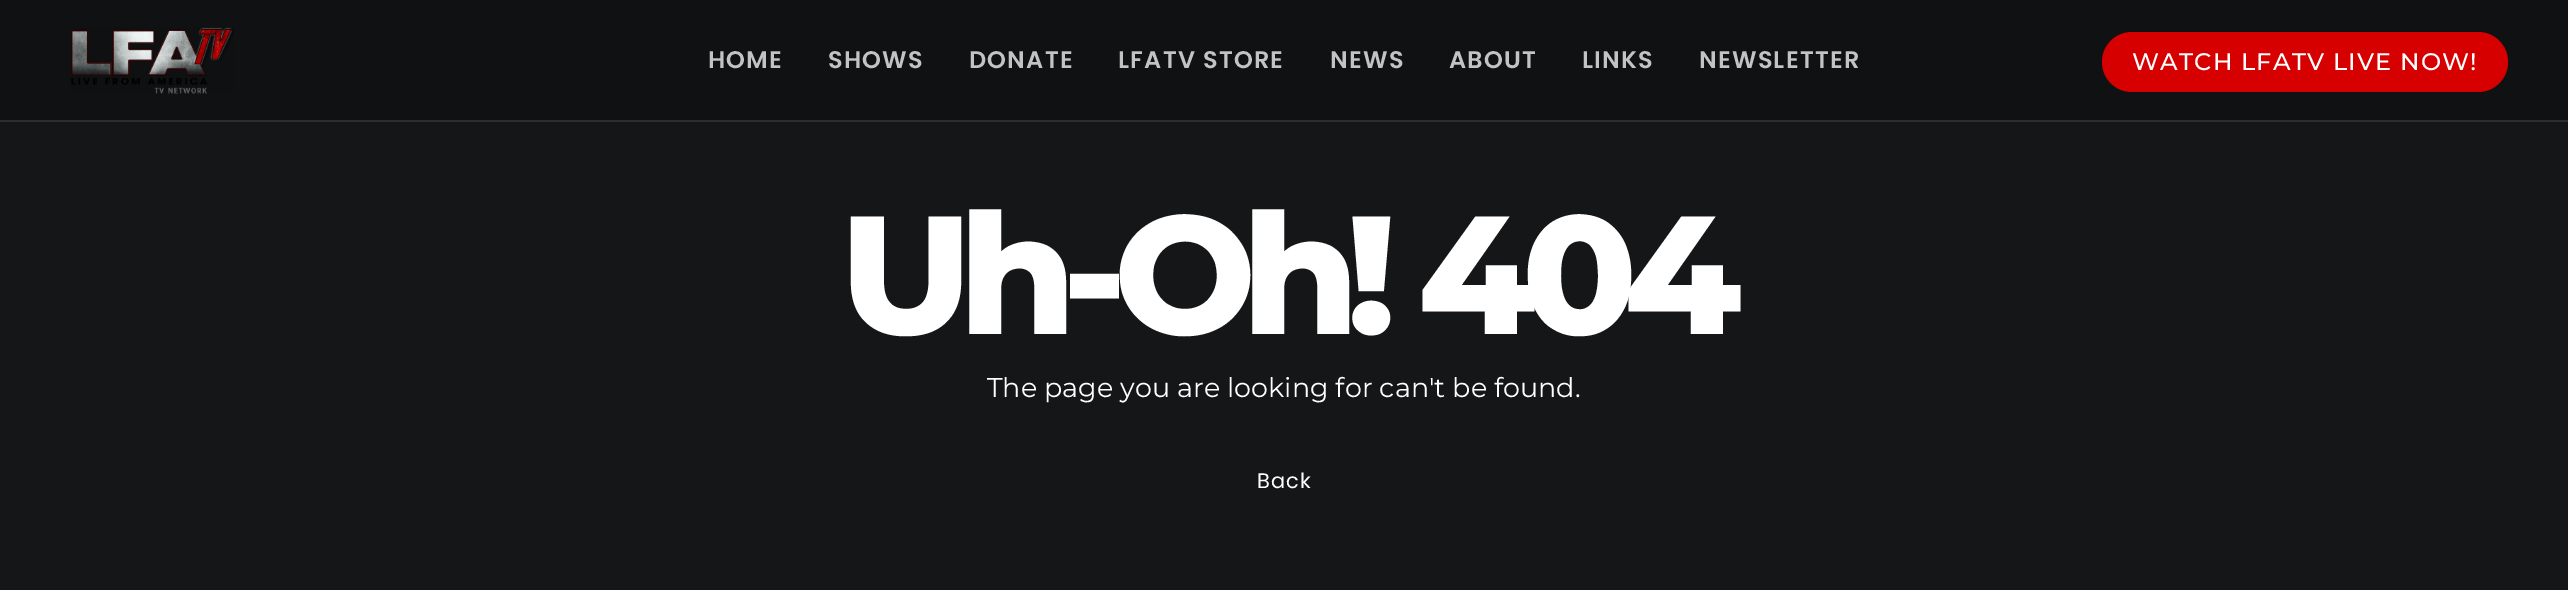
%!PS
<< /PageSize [2568 590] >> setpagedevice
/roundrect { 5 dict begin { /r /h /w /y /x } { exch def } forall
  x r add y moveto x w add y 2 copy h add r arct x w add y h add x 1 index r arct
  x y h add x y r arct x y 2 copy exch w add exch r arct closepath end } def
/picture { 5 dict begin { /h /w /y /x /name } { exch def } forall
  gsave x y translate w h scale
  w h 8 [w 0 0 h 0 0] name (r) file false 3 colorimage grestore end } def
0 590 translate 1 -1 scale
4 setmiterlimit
0.059 0.067 0.071 setrgbcolor
0 0 2568 590 rectfill
0.173 0.176 0.184 setrgbcolor
0 120 2568 2 rectfill
(img1.rgb) 71 27 163 67 picture
/Poppins-SemiBold [24 0 0 -24 0 0] selectfont
0.765 0.765 0.769 setrgbcolor
708 68 moveto 1.2 0 (HOME) ashow
828 68 moveto 1.2 0 (SHOWS) ashow
969 68 moveto 1.2 0 (DONATE) ashow
1118 68 moveto 1.2 0 (LFATV STORE) ashow
1330 68 moveto 1.2 0 (NEWS) ashow
1449 68 moveto 1.2 0 (ABOUT) ashow
1582 68 moveto 1.2 0 (LINKS) ashow
1699 68 moveto 1.2 0 (NEWSLETTER) ashow
0.839 0 0 setrgbcolor
2102 32 406 60 30 roundrect fill
/Montserrat-Medium [24 0 0 -24 0 0] selectfont
1 setgray
2132 70 moveto 1.2 0 (WATCH LFATV LIVE NOW!) ashow
0.078 0.086 0.094 setrgbcolor
0 122 2568 468 rectfill
/Montserrat-ExtraBold [168 0 0 -168 0 0] selectfont
1 setgray
840 334 moveto -13.5 0 (Uh-Oh! 404) ashow
/Montserrat-Regular [27 0 0 -27 0 0] selectfont
987 397 moveto (The page you are looking for can't be found.) show
/Poppins-Regular [21 0 0 -21 0 0] selectfont
1257 488 moveto 1 0 (Back) ashow
showpage
